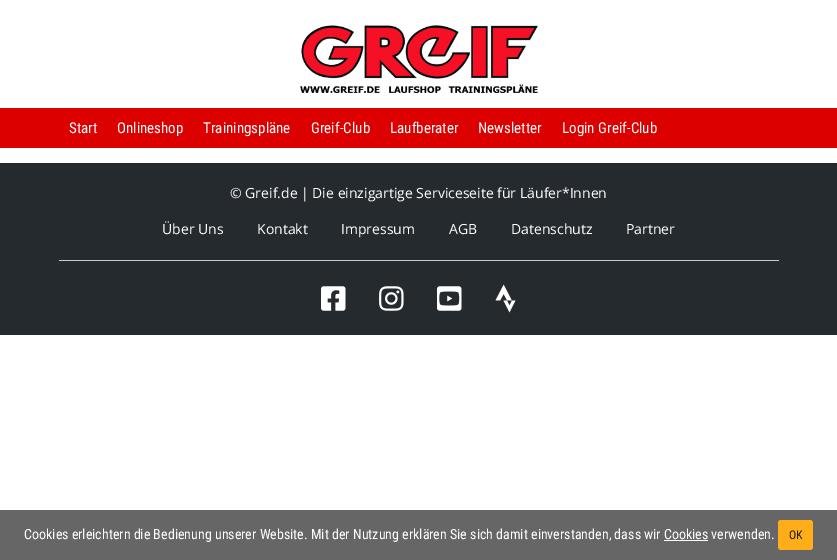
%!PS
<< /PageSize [837 560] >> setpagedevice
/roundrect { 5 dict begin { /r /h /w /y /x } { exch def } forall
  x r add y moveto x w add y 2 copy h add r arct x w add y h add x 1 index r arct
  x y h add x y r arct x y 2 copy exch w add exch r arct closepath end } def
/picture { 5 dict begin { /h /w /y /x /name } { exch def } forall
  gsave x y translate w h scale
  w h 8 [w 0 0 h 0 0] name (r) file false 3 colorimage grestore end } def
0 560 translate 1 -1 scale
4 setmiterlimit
1 setgray
0 0 837 560 rectfill
(img1.rgb) 300 25 238 68 picture
0.867 0 0 setrgbcolor
0 108 837 40 rectfill
/RobotoCondensed-Regular [15 0 0 -15 0 0] selectfont
1 setgray
69 133 moveto (Start) show
117 133 moveto (Onlineshop) show
203 133 moveto (Trainingspläne) show
311 133 moveto (Greif-Club) show
390 133 moveto (Laufberater) show
478 133 moveto (Newsletter) show
562 133 moveto (Login Greif-Club) show
0.145 0.165 0.184 setrgbcolor
0 163 837 172 rectfill
/OpenSans-Regular [14 0 0 -14 0 0] selectfont
1 setgray
230 198 moveto (© Greif.de | Die einzigartige Serviceseite für Läufer*Innen) show
162 234 moveto (Über Uns) show
257 234 moveto (Kontakt) show
341 234 moveto (Impressum) show
449 234 moveto (AGB) show
511 234 moveto (Datenschutz) show
626 234 moveto (Partner) show
0.8 setgray
59 260 720 1 rectfill
(img2.rgb) 321 286 25 25 picture
(img3.rgb) 379 286 25 25 picture
(img4.rgb) 437 286 25 25 picture
(img5.rgb) 495 284 21 29 picture
0.4 setgray
0 510 837 50 rectfill
/RobotoCondensed-Regular [14 0 0 -14 0 0] selectfont
1 setgray
24 539 moveto (Cookies erleichtern die Bedienung unserer Website. Mit der Nutzung erklären Sie sich damit einverstanden, dass wir Cookies verwenden.) show
1 0.682 0.102 setrgbcolor
778 520 35 30 3 roundrect fill
/RobotoCondensed-Regular [12 0 0 -12 0 0] selectfont
0.102 setgray
789 539 moveto (OK) show
1 setgray
664 540 44 1 rectfill
showpage
